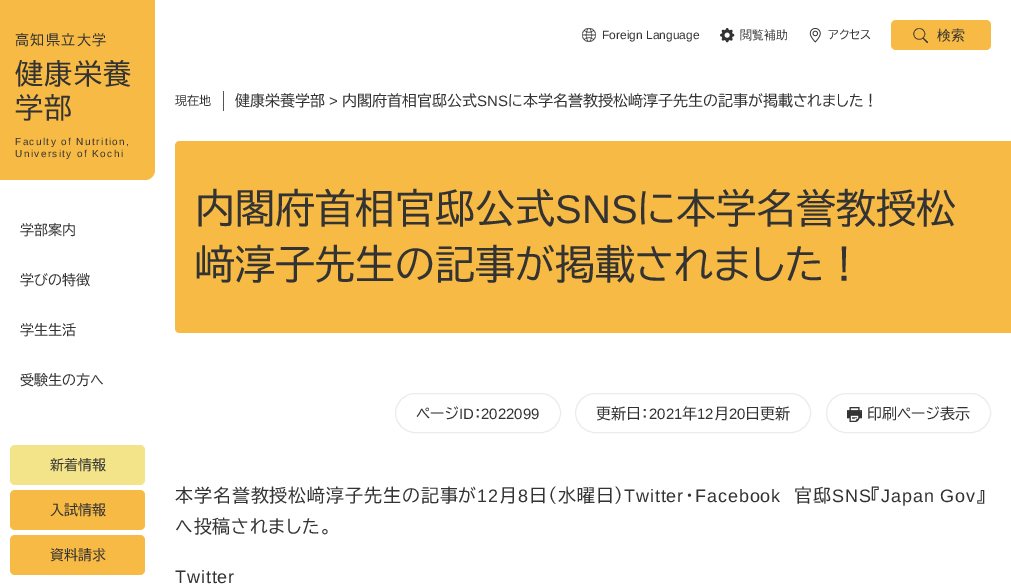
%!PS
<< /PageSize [1011 584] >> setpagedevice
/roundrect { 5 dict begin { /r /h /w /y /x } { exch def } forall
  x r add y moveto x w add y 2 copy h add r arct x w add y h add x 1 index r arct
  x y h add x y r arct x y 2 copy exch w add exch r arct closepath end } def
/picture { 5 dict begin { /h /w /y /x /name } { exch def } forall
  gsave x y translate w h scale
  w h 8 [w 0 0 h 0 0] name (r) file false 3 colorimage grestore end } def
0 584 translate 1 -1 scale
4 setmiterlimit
1 setgray
0 0 1011 584 rectfill
0.969 0.729 0.267 setrgbcolor
newpath 0 0 moveto 155 0 lineto 155 170 lineto 155 175.5 150.5 180 145 180 curveto 0 180 lineto closepath fill
/BIZUDPGothic-Regular [14 0 0 -14 0 0] selectfont
0.2 setgray
15 45 moveto 1.4 0 (高知県立大学) ashow
/BIZUDPGothic-Regular [28 0 0 -28 0 0] selectfont
15 84 moveto 1.4 0 (健康栄養) ashow
15 118 moveto 1.4 0 (学部) ashow
/LiberationSans-Regular [10 0 0 -10 0 0] selectfont
15 145 moveto 1.4 0 (Faculty of Nutrition,) ashow
15 157 moveto 1.4 0 (University of Kochi) ashow
/BIZUDPGothic-Regular [14 0 0 -14 0 0] selectfont
20 235 moveto (学部案内) show
20 285 moveto (学びの特徴) show
20 335 moveto (学生生活) show
20 385 moveto (受験生の方へ) show
0.957 0.894 0.537 setrgbcolor
10 445 135 40 5 roundrect fill
0.2 setgray
50 470 moveto (新着情報) show
0.969 0.729 0.267 setrgbcolor
10 490 135 40 5 roundrect fill
0.2 setgray
50 515 moveto (入試情報) show
0.969 0.729 0.267 setrgbcolor
10 535 135 40 5 roundrect fill
0.2 setgray
50 560 moveto (資料請求) show
(img1.rgb) 582 28 14 14 picture
/LiberationSans-Regular [12 0 0 -12 0 0] selectfont
602 39 moveto (Foreign Language) show
(img2.rgb) 720 28 15 15 picture
/WenQuanYiZenHei-Medium [12 0 0 -12 0 0] selectfont
740 39 moveto (閲覧補助) show
(img3.rgb) 809 28 12 15 picture
/BIZUDPGothic-Regular [12 0 0 -12 0 0] selectfont
828 39 moveto (アクセス) show
0.969 0.729 0.267 setrgbcolor
891 20 100 30 5 roundrect fill
(img4.rgb) 913 28 15 15 picture
/WenQuanYiZenHei-Medium [14 0 0 -14 0 0] selectfont
0.2 setgray
937 40 moveto (検索) show
0.333 setgray
223 91 1 20 rectfill
/BIZUDPGothic-Regular [12 0 0 -12 0 0] selectfont
0.2 setgray
175 105 moveto (現在地) show
/BIZUDPGothic-Regular [15 0 0 -15 0 0] selectfont
235 106 moveto (健康栄養学部) show
/LiberationSans-Regular [15 0 0 -15 0 0] selectfont
329 106 moveto (>) show
/BIZUDPGothic-Regular [15 0 0 -15 0 0] selectfont
342 106 moveto (内閣府首相官邸公式) show
/LiberationSans-Regular [15 0 0 -15 0 0] selectfont
477 106 moveto (SNS) show
/BIZUDPGothic-Regular [15 0 0 -15 0 0] selectfont
508 106 moveto (に本学名誉教授松﨑淳子先生の記事が掲載されました！) show
0.969 0.729 0.267 setrgbcolor
newpath 180 141 moveto 1011 141 lineto 1011 333 lineto 180 333 lineto 177 333 175 331 175 328 curveto 175 146 lineto 175 143 177 141 180 141 curveto closepath fill
/BIZUDPGothic-Regular [40 0 0 -40 0 0] selectfont
0.2 setgray
195 223 moveto (内閣府首相官邸公式) show
/LiberationSans-Regular [40 0 0 -40 0 0] selectfont
555 223 moveto (SNS) show
/BIZUDPGothic-Regular [40 0 0 -40 0 0] selectfont
637 223 moveto (に本学名誉教授松) show
195 279 moveto (﨑淳子先生の記事が掲載されました！) show
0.925 setgray
395.5 393.5 165 39 19.5 roundrect stroke
/BIZUDPGothic-Regular [15 0 0 -15 0 0] selectfont
0.2 setgray
416 419 moveto (ページ) show
/LiberationSans-Regular [15 0 0 -15 0 0] selectfont
459 419 moveto (ID) show
/BIZUDPGothic-Regular [15 0 0 -15 0 0] selectfont
474 419 moveto (：) show
/LiberationSans-Regular [15 0 0 -15 0 0] selectfont
481 419 moveto (2022099) show
0.925 setgray
575.5 393.5 235 39 19.5 roundrect stroke
/BIZUDPGothic-Regular [15 0 0 -15 0 0] selectfont
0.2 setgray
596 419 moveto (更新日：) show
/LiberationSans-Regular [15 0 0 -15 0 0] selectfont
649 419 moveto (2021) show
/BIZUDPGothic-Regular [15 0 0 -15 0 0] selectfont
682 419 moveto (年) show
/LiberationSans-Regular [15 0 0 -15 0 0] selectfont
697 419 moveto (12) show
/BIZUDPGothic-Regular [15 0 0 -15 0 0] selectfont
714 419 moveto (月) show
/LiberationSans-Regular [15 0 0 -15 0 0] selectfont
729 419 moveto (20) show
/BIZUDPGothic-Regular [15 0 0 -15 0 0] selectfont
745 419 moveto (日更新) show
0.925 setgray
826.5 393.5 164 39 19.5 roundrect stroke
(img5.rgb) 847 407 15 15 picture
0.2 setgray
867 419 moveto (印刷ページ表示) show
/BIZUDPGothic-Regular [18 0 0 -18 0 0] selectfont
175 502 moveto 0.9 0 (本学名誉教授松﨑淳子先生の記事が) ashow
/LiberationSans-Regular [18 0 0 -18 0 0] selectfont
477 502 moveto 0.9 0 (12) ashow
/BIZUDPGothic-Regular [18 0 0 -18 0 0] selectfont
499 502 moveto 0.9 0 (月) ashow
/LiberationSans-Regular [18 0 0 -18 0 0] selectfont
518 502 moveto 0.9 0 (8) ashow
/BIZUDPGothic-Regular [18 0 0 -18 0 0] selectfont
529 502 moveto 0.9 0 (日（水曜日）) ashow
/LiberationSans-Regular [18 0 0 -18 0 0] selectfont
624 502 moveto 0.9 0 (Twitter) ashow
/BIZUDPGothic-Regular [18 0 0 -18 0 0] selectfont
685 502 moveto 0.9 0 (・) ashow
/LiberationSans-Regular [18 0 0 -18 0 0] selectfont
695 502 moveto 0.9 0 (Facebook) ashow
/BIZUDPGothic-Regular [18 0 0 -18 0 0] selectfont
794 502 moveto 0.9 0 (官邸) ashow
/LiberationSans-Regular [18 0 0 -18 0 0] selectfont
832 502 moveto 0.9 0 (SNS) ashow
/BIZUDPGothic-Regular [18 0 0 -18 0 0] selectfont
871 502 moveto 0.9 0 (『) ashow
/LiberationSans-Regular [18 0 0 -18 0 0] selectfont
881 502 moveto 0.9 0 (Japan Gov) ashow
/BIZUDPGothic-Regular [18 0 0 -18 0 0] selectfont
976 502 moveto 0.9 0 (』) ashow
175 533 moveto 0.9 0 (へ投稿されました。) ashow
/LiberationSans-Regular [18 0 0 -18 0 0] selectfont
175 583 moveto 0.9 0 (Twitter) ashow
showpage
